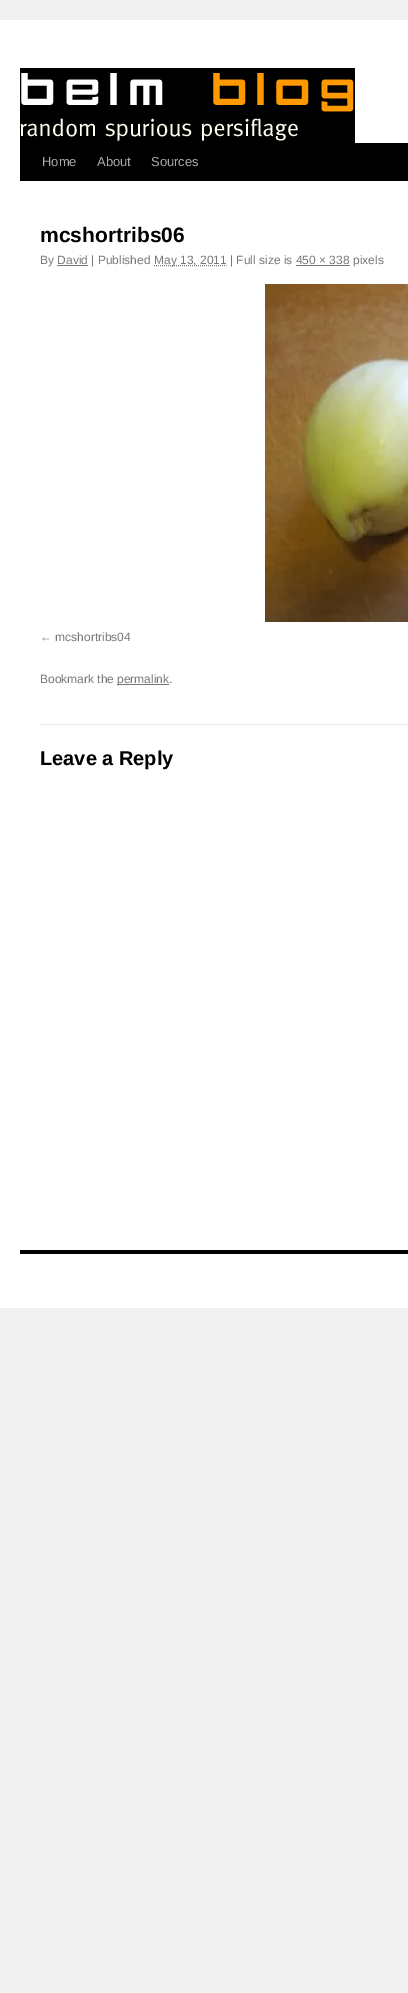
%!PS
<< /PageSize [408 1993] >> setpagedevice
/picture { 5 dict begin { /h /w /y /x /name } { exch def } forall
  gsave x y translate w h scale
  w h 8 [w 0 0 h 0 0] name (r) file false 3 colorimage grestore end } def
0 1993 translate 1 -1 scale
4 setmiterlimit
0.945 setgray
0 0 408 1993 rectfill
1 setgray
0 20 408 1288 rectfill
0 setgray
20 68 335 4 rectfill
20 142 335 1 rectfill
(img1.rgb) 20 72 335 70 picture
20 143 388 38 rectfill
/LiberationSans-Regular [13 0 0 -13 0 0] selectfont
0.667 setgray
42 166 moveto (Home) show
97 166 moveto (About) show
151 166 moveto (Sources) show
/LiberationSans-Bold [21 0 0 -21 0 0] selectfont
0 setgray
40 242 moveto (mcshortribs06) show
/LiberationSans-Regular [12 0 0 -12 0 0] selectfont
0.467 setgray
40 264 moveto (By David | Published) show
[1 1] 0 setdash
newpath 154 265.5 moveto 226.5 265.5 lineto stroke
154 264 moveto (May 13, 2011 | Full size is 450 × 338 pixels) show
57 265 31 1 rectfill
296 265 54 1 rectfill
(img2.rgb) 265 284 143 338 picture
40 641 moveto (← mcshortribs04) show
40 683 moveto (Bookmark the) show
117 684 52 1 rectfill
117 683 moveto (permalink.) show
0.906 setgray
40 724 368 1 rectfill
/LiberationSans-Bold [20 0 0 -20 0 0] selectfont
0 setgray
40 765 moveto (Leave a Reply) show
20 1250 388 4 rectfill
showpage
